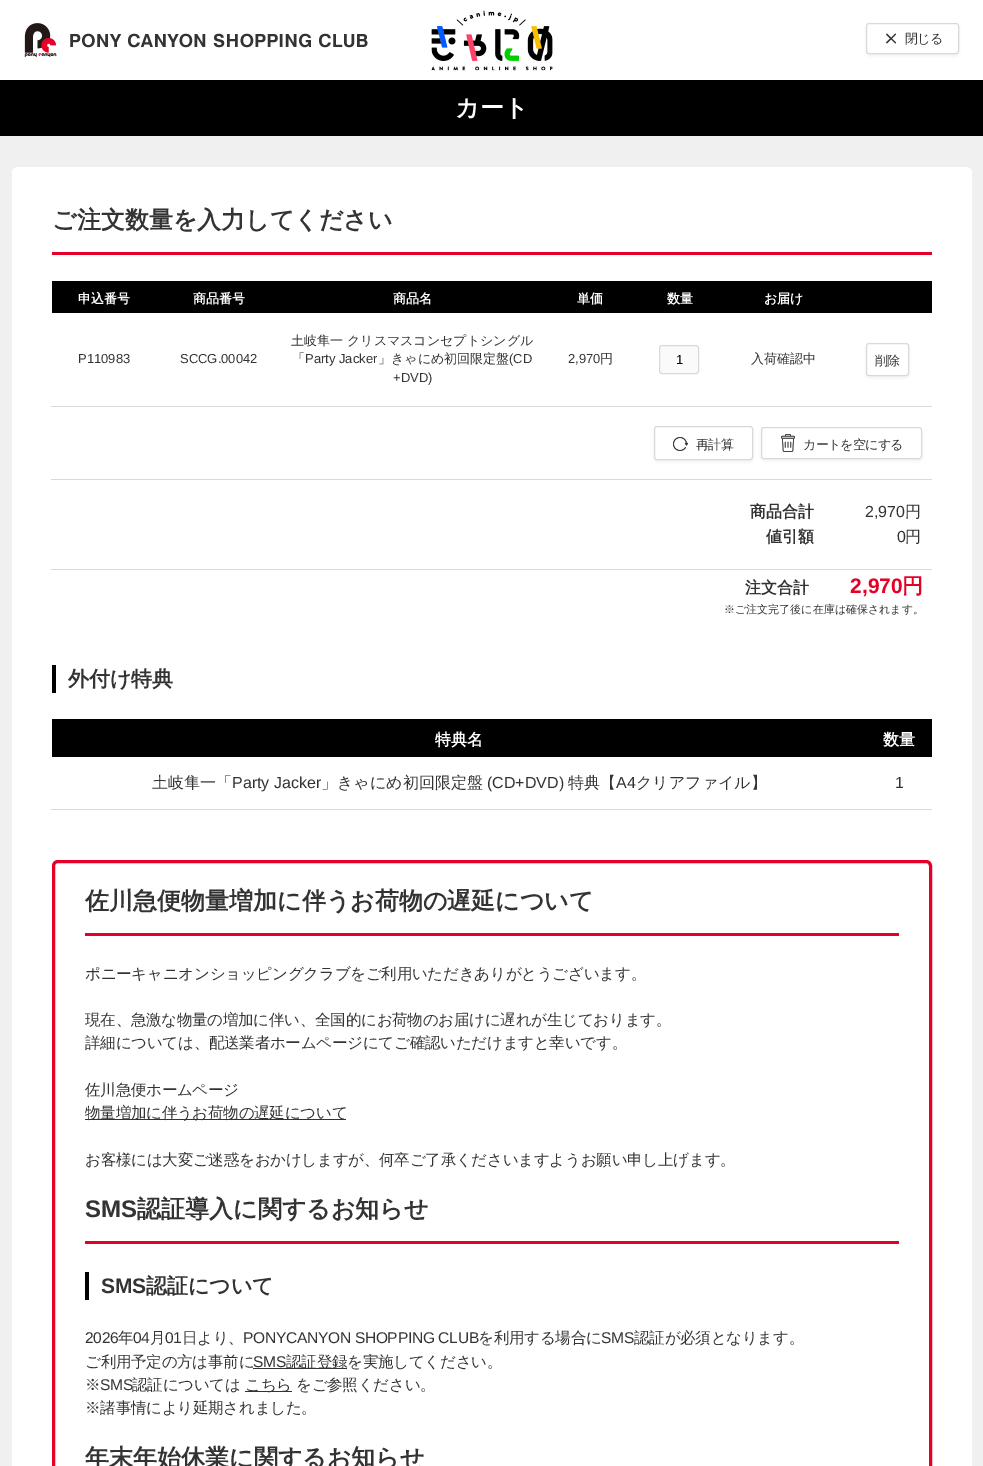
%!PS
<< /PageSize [983 1466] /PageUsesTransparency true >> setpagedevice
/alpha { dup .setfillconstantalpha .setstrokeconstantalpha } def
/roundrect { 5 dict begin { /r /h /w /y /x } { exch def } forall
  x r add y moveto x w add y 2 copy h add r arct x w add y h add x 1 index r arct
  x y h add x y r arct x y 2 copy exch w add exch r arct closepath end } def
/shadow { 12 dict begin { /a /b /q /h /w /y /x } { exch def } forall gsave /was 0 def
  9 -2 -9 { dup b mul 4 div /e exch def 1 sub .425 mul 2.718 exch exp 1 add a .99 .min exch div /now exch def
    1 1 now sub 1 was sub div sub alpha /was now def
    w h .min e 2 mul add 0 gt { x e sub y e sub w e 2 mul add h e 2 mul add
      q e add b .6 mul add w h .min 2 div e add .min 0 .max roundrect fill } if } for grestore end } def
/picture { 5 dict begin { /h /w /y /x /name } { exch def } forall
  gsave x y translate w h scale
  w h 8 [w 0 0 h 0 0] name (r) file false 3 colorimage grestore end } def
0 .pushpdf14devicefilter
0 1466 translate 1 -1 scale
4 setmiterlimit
0.941 setgray
0 0 983 1466 rectfill
1 setgray
0 0 983 80 rectfill
(img1.rgb) 24 23 344 34 picture
(img2.rgb) 431 10 122 61 picture
0 setgray
866 25 93 31 3 1.5 0.05 shadow
1 setgray
866.5 23.5 92 30 2.5 roundrect gsave fill grestore
0.851 setgray
stroke
0.2 setgray
newpath 887 33.5 moveto 896 42.5 lineto 895.5 43.5 lineto 886 34.5 lineto closepath fill
/WenQuanYiZenHei-Medium [13 0 0 -13 0 0] selectfont
905 43 moveto -0.75 0 (閉じる) ashow
newpath 886 42.5 moveto 895.5 33.5 lineto 896 34.5 lineto 887 43.5 lineto closepath fill
0 setgray
0 80 983 56 rectfill
/WenQuanYiZenHei-Bold [24 0 0 -24 0 0] selectfont
1 setgray
455 116 moveto (カート) show
12 167 960 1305 6 roundrect fill
0.898 0 0.157 setrgbcolor
52 252 880 3 rectfill
0.2 setgray
52 228 moveto (ご注文数量を入力してください) show
0 setgray
52 281 880 32 rectfill
/WenQuanYiZenHei-Bold [13 0 0 -13 0 0] selectfont
1 setgray
78 303 moveto (申込番号) show
193 303 moveto (商品番号) show
393 303 moveto (商品名) show
577 303 moveto (単価) show
667 303 moveto (数量) show
764 303 moveto (お届け) show
0.851 setgray
51 406 881 1 rectfill
/LiberationSans-Regular [13 0 0 -13 0 0] selectfont
0.2 setgray
78 363 moveto (P110983) show
180 363 moveto (SCCG.00042) show
/WenQuanYiZenHei-Medium [13 0 0 -13 0 0] selectfont
291 345 moveto (土岐隼一 クリスマスコンセプトシングル) show
292 363 moveto (「) show
/LiberationSans-Regular [13 0 0 -13 0 0] selectfont
305 363 moveto (Party Jacker) show
/WenQuanYiZenHei-Medium [13 0 0 -13 0 0] selectfont
378 363 moveto (」きゃにめ初回限定盤) show
/LiberationSans-Regular [13 0 0 -13 0 0] selectfont
509 363 moveto (\(CD) show
393 382 moveto (+DVD\)) show
568 363 moveto (2,970) show
/WenQuanYiZenHei-Medium [13 0 0 -13 0 0] selectfont
600 363 moveto (円) show
0.98 setgray
659.5 345.5 39 28 2.5 roundrect gsave fill grestore
0.851 setgray
stroke
/LiberationSans-Regular [13 0 0 -13 0 0] selectfont
0 setgray
676 364 moveto (1) show
/WenQuanYiZenHei-Medium [13 0 0 -13 0 0] selectfont
0.2 setgray
751 363 moveto (入荷確認中) show
0 setgray
866 345 43 33 3 1.5 0.05 shadow
1 setgray
866.5 343.5 42 32 2.5 roundrect gsave fill grestore
0.851 setgray
stroke
0.2 setgray
875 365 moveto -0.75 0 (削除) ashow
0.851 setgray
51 479 881 1 rectfill
0 setgray
654 428 99 34 3 1.5 0.05 shadow
1 setgray
654.5 426.5 98 33 2.5 roundrect gsave fill grestore
0.851 setgray
stroke
(img3.rgb) 673 437 15 14 picture
0.2 setgray
696 449 moveto -0.75 0 (再計算) ashow
0 setgray
761 429 161 32 3 1.5 0.05 shadow
1 setgray
761.5 427.5 160 31 2.5 roundrect gsave fill grestore
0.851 setgray
stroke
(img4.rgb) 781 434 14 18 picture
0.2 setgray
803 449 moveto -0.75 0 (カートを空にする) ashow
0.851 setgray
51 569 881 1 rectfill
/WenQuanYiZenHei-Bold [16 0 0 -16 0 0] selectfont
0.2 setgray
750 517 moveto (商品合計) show
/LiberationSans-Regular [16 0 0 -16 0 0] selectfont
865 517 moveto (2,970) show
/WenQuanYiZenHei-Medium [16 0 0 -16 0 0] selectfont
905 517 moveto (円) show
/WenQuanYiZenHei-Bold [16 0 0 -16 0 0] selectfont
766 542 moveto (値引額) show
/LiberationSans-Regular [16 0 0 -16 0 0] selectfont
897 542 moveto (0) show
/WenQuanYiZenHei-Medium [16 0 0 -16 0 0] selectfont
905 542 moveto (円) show
/WenQuanYiZenHei-Bold [16 0 0 -16 0 0] selectfont
745 593 moveto (注文合計) show
/LiberationSans-Bold [21 0 0 -21 0 0] selectfont
0.898 0 0.157 setrgbcolor
850 593 moveto (2,970) show
/WenQuanYiZenHei-Bold [21 0 0 -21 0 0] selectfont
902 593 moveto (円) show
/WenQuanYiZenHei-Medium [11 0 0 -11 0 0] selectfont
0.2 setgray
724 613 moveto (※ご注文完了後に在庫は確保されます。) show
0 setgray
52 665 4 28 rectfill
/WenQuanYiZenHei-Bold [21 0 0 -21 0 0] selectfont
0.2 setgray
68 686 moveto (外付け特典) show
0 setgray
52 719 880 38 rectfill
/WenQuanYiZenHei-Bold [16 0 0 -16 0 0] selectfont
1 setgray
435 745 moveto (特典名) show
883 745 moveto (数量) show
0.851 setgray
51 809 881 1 rectfill
/WenQuanYiZenHei-Medium [16 0 0 -16 0 0] selectfont
0.2 setgray
152 788 moveto (土岐隼一「) show
/LiberationSans-Regular [16 0 0 -16 0 0] selectfont
232 788 moveto (Party Jacker) show
/WenQuanYiZenHei-Medium [16 0 0 -16 0 0] selectfont
321 788 moveto (」きゃにめ初回限定盤) show
/LiberationSans-Regular [16 0 0 -16 0 0] selectfont
487 788 moveto (\(CD+DVD\)) show
/WenQuanYiZenHei-Medium [16 0 0 -16 0 0] selectfont
568 788 moveto (特典【) show
/LiberationSans-Regular [16 0 0 -16 0 0] selectfont
616 788 moveto (A4) show
/WenQuanYiZenHei-Medium [16 0 0 -16 0 0] selectfont
636 788 moveto (クリアファイル】) show
/LiberationSans-Regular [16 0 0 -16 0 0] selectfont
895 788 moveto (1) show
0.898 0 0.157 setrgbcolor
3 setlinewidth
53.5 861.5 877 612 4.5 roundrect stroke
85 933 814 3 rectfill
/WenQuanYiZenHei-Bold [24 0 0 -24 0 0] selectfont
0.2 setgray
85 909 moveto (佐川急便物量増加に伴うお荷物の遅延について) show
/WenQuanYiZenHei-Medium [15.55 0 0 -15.55 0 0] selectfont
85 979 moveto -0.3 0 (ポニーキャニオンショッピングクラブをご利用いただきありがとうございます。) ashow
85 1025 moveto -0.3 0 (現在、急激な物量の増加に伴い、全国的にお荷物のお届けに遅れが生じております。) ashow
85 1048 moveto -0.3 0 (詳細については、配送業者ホームページにてご確認いただけますと幸いです。) ashow
85 1095 moveto -0.3 0 (佐川急便ホームページ) ashow
85 1119 261 1 rectfill
85 1118 moveto -0.3 0 (物量増加に伴うお荷物の遅延について) ashow
85 1165 moveto -0.3 0 (お客様には大変ご迷惑をおかけしますが、何卒ご了承くださいますようお願い申し上げます。) ashow
0.898 0 0.157 setrgbcolor
85 1241 814 3 rectfill
/LiberationSans-Bold [24 0 0 -24 0 0] selectfont
0.2 setgray
85 1217 moveto (SMS) show
/WenQuanYiZenHei-Bold [24 0 0 -24 0 0] selectfont
137 1217 moveto (認証導入に関するお知らせ) show
0 setgray
85 1272 4 28 rectfill
/LiberationSans-Bold [21 0 0 -21 0 0] selectfont
0.2 setgray
101 1293 moveto (SMS) show
/WenQuanYiZenHei-Bold [21 0 0 -21 0 0] selectfont
146 1293 moveto (認証について) show
/LiberationSans-Regular [15.55 0 0 -15.55 0 0] selectfont
85 1343 moveto -0.3 0 (2026) ashow
/WenQuanYiZenHei-Medium [15.55 0 0 -15.55 0 0] selectfont
118 1343 moveto -0.3 0 (年) ashow
/LiberationSans-Regular [15.55 0 0 -15.55 0 0] selectfont
133 1343 moveto -0.3 0 (04) ashow
/WenQuanYiZenHei-Medium [15.55 0 0 -15.55 0 0] selectfont
150 1343 moveto -0.3 0 (月) ashow
/LiberationSans-Regular [15.55 0 0 -15.55 0 0] selectfont
165 1343 moveto -0.3 0 (01) ashow
/WenQuanYiZenHei-Medium [15.55 0 0 -15.55 0 0] selectfont
182 1343 moveto -0.3 0 (日より、) ashow
/LiberationSans-Regular [15.55 0 0 -15.55 0 0] selectfont
243 1343 moveto -0.3 0 (PONYCANYON SHOPPING CLUB) ashow
/WenQuanYiZenHei-Medium [15.55 0 0 -15.55 0 0] selectfont
478 1343 moveto -0.3 0 (を利用する場合に) ashow
/LiberationSans-Regular [15.55 0 0 -15.55 0 0] selectfont
601 1343 moveto -0.3 0 (SMS) ashow
/WenQuanYiZenHei-Medium [15.55 0 0 -15.55 0 0] selectfont
634 1343 moveto -0.3 0 (認証が必須となります。) ashow
85 1367 moveto -0.3 0 (ご利用予定の方は事前に) ashow
/LiberationSans-Regular [15.55 0 0 -15.55 0 0] selectfont
253 1367 moveto -0.3 0 (SMS) ashow
253 1368 94 1 rectfill
/WenQuanYiZenHei-Medium [15.55 0 0 -15.55 0 0] selectfont
286 1367 moveto -0.3 0 (認証登録を実施してください。) ashow
85 1390 moveto -0.3 0 (※) ashow
/LiberationSans-Regular [15.55 0 0 -15.55 0 0] selectfont
100 1390 moveto -0.3 0 (SMS) ashow
/WenQuanYiZenHei-Medium [15.55 0 0 -15.55 0 0] selectfont
132 1390 moveto -0.3 0 (認証については) ashow
245 1391 47 1 rectfill
245 1390 moveto -0.3 0 (こちら) ashow
296 1390 moveto -0.3 0 (をご参照ください。) ashow
85 1413 moveto -0.3 0 (※諸事情により延期されました。) ashow
/WenQuanYiZenHei-Bold [24 0 0 -24 0 0] selectfont
85 1466 moveto (年末年始休業に関するお知らせ) show
.poppdf14devicefilter showpage
